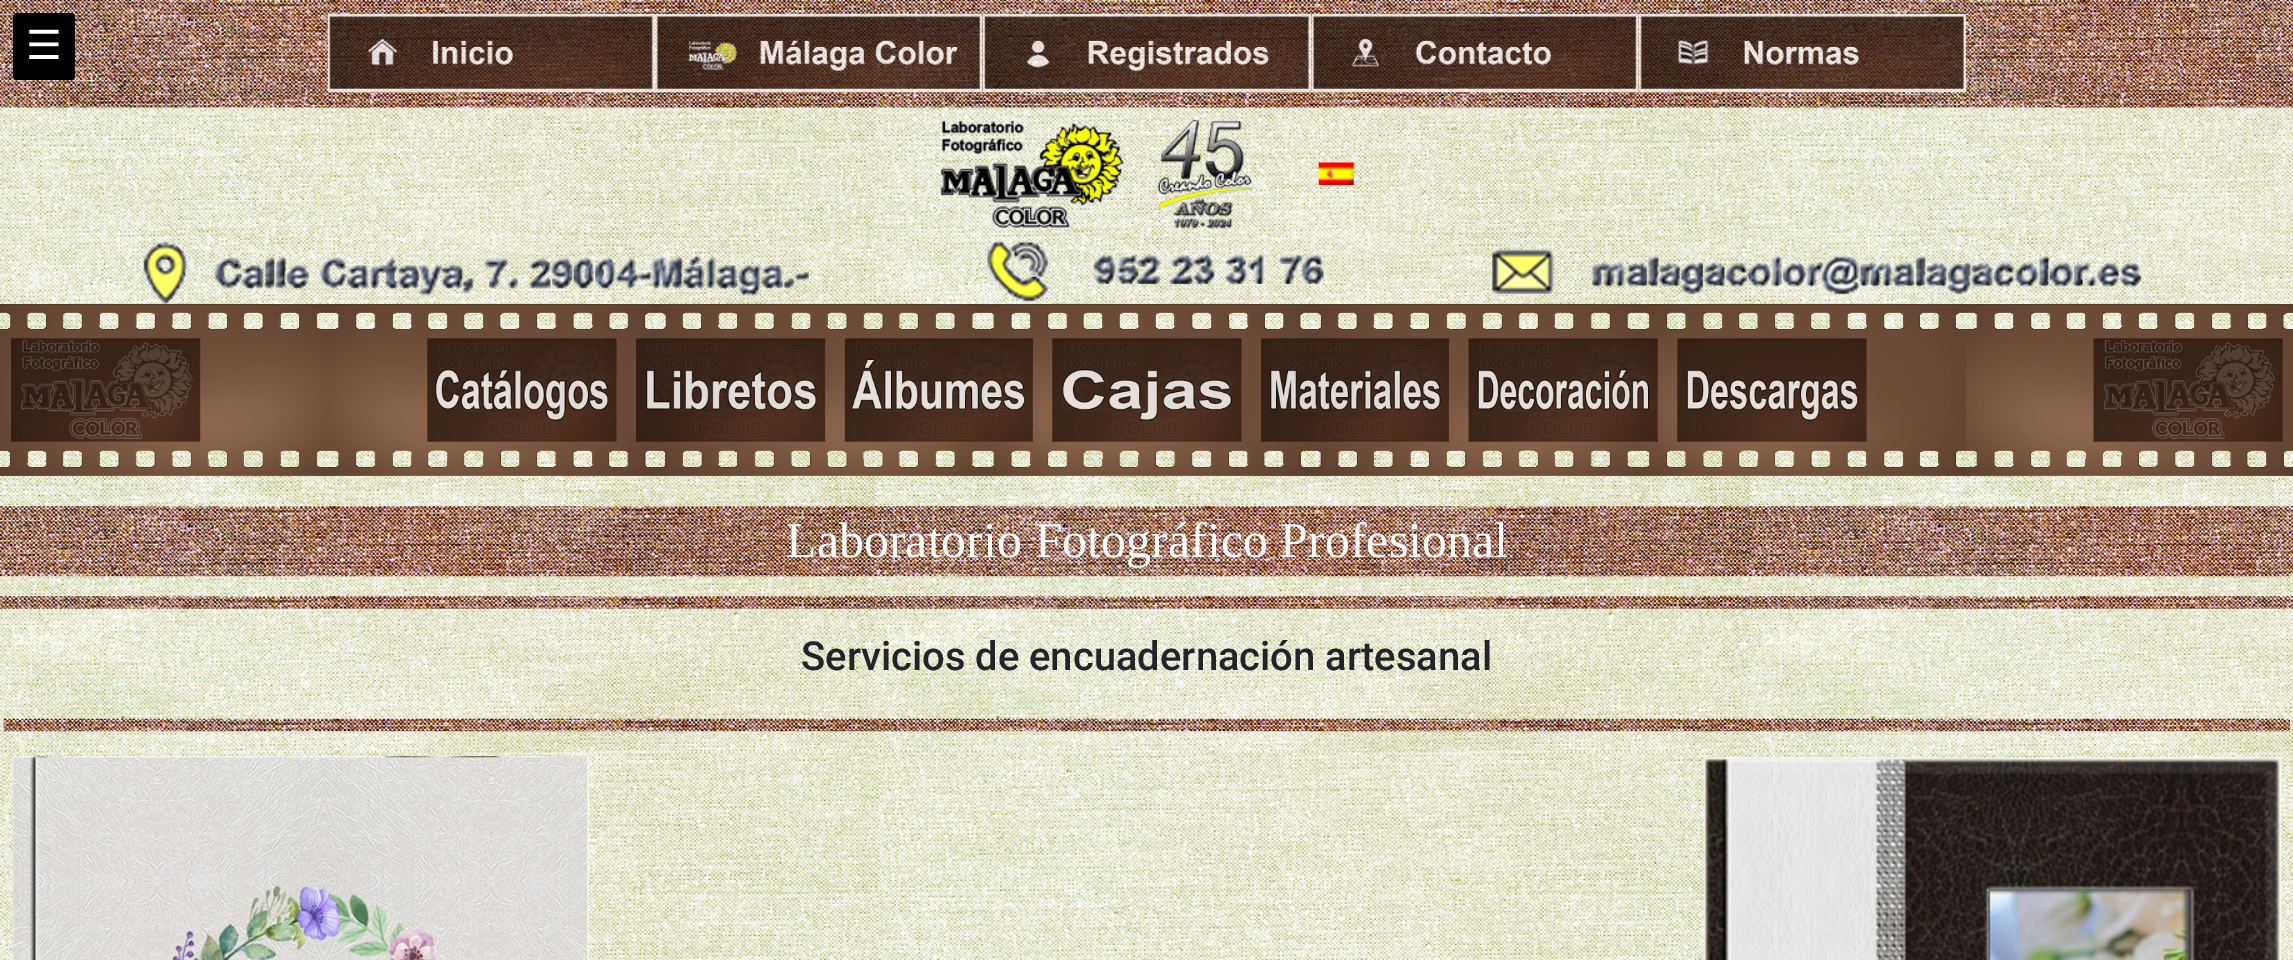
%!PS
<< /PageSize [2293 960] >> setpagedevice
/roundrect { 5 dict begin { /r /h /w /y /x } { exch def } forall
  x r add y moveto x w add y 2 copy h add r arct x w add y h add x 1 index r arct
  x y h add x y r arct x y 2 copy exch w add exch r arct closepath end } def
/picture { 5 dict begin { /h /w /y /x /name } { exch def } forall
  gsave x y translate w h scale
  w h 8 [w 0 0 h 0 0] name (r) file false 3 colorimage grestore end } def
0 960 translate 1 -1 scale
4 setmiterlimit
1 setgray
0 0 2293 960 rectfill
(img1.rgb) 0 107 2293 853 picture
(img2.rgb) 0 0 2293 108 picture
(img3.rgb) 327 13 328 80 picture
(img4.rgb) 655 13 328 80 picture
(img5.rgb) 982 13 330 80 picture
(img6.rgb) 1311 13 328 80 picture
(img7.rgb) 1638 13 329 80 picture
0 setgray
13 13 62 67 4 roundrect fill
/DejaVuSans-Regular [40 0 0 -40 0 0] selectfont
1 setgray
26 59 moveto (☰) show
(img8.rgb) 940 120 313 109 picture
(img9.rgb) 1318 162 36 23 picture
(img13.rgb) 0 303 2293 174 picture
(img10.rgb) 143 241 666 63 picture
(img11.rgb) 902 241 422 61 picture
(img12.rgb) 1492 249 650 46 picture
(img14.rgb) 11 338 190 104 picture
(img15.rgb) 427 338 190 104 picture
(img16.rgb) 636 338 190 104 picture
(img17.rgb) 844 338 189 104 picture
(img18.rgb) 1052 338 190 104 picture
(img19.rgb) 1261 338 188 104 picture
(img20.rgb) 1468 338 190 104 picture
(img21.rgb) 1677 338 190 104 picture
(img22.rgb) 2093 338 190 104 picture
(img23.rgb) 0 506 2293 71 picture
/LiberationSerif-Regular [50 0 0 -50 0 0] selectfont
786 557 moveto (Laboratorio Fotográfico Profesional) show
(img24.rgb) 0 596 2293 13 picture
/Roboto-Medium [40 0 0 -40 0 0] selectfont
0.129 0.145 0.161 setrgbcolor
801 670 moveto (Servicios de encuadernación artesanal) show
(img25.rgb) 3 718 2287 14 picture
(img26.rgb) 3 751 2287 209 picture
(img27.rgb) 12 756 577 204 picture
(img28.rgb) 1703 757 579 203 picture
showpage
